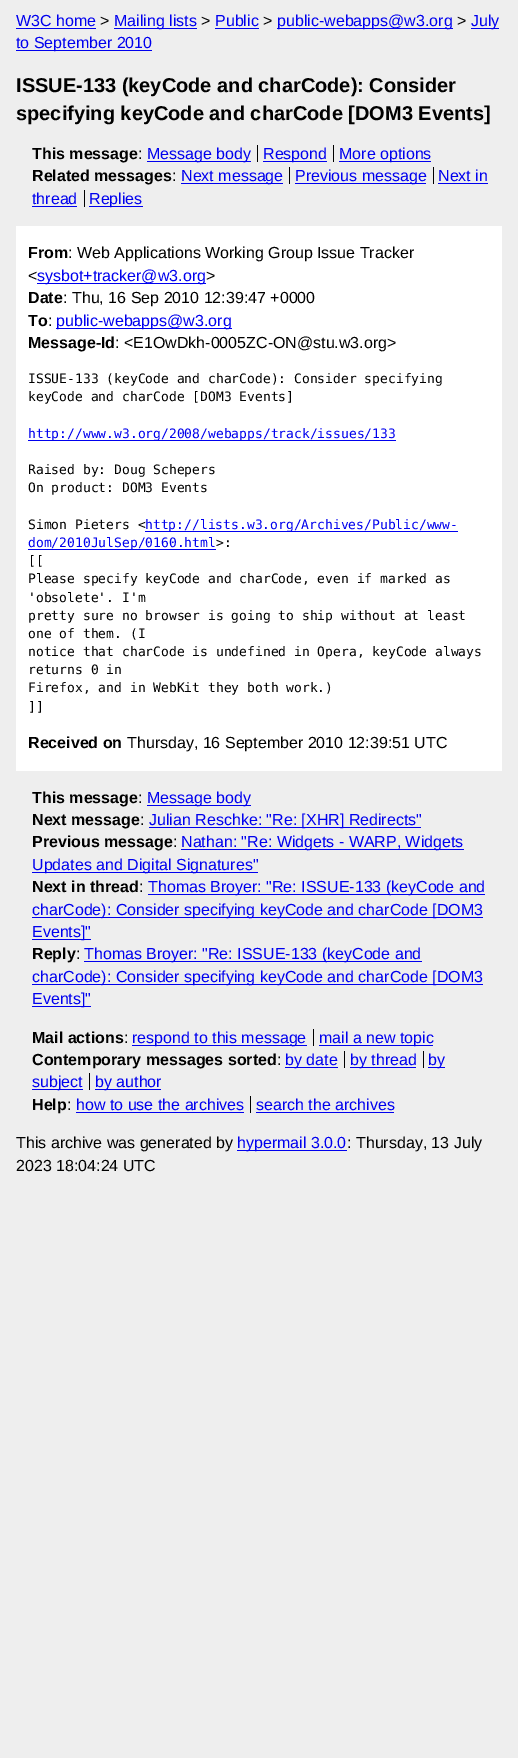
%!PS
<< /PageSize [518 1758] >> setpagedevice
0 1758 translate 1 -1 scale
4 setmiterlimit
0.933 setgray
0 0 518 1758 rectfill
/LiberationSans-Regular [16 0 0 -16 0 0] selectfont
0 0 0.933 setrgbcolor
16 26 moveto (W3C home) show
16 28 80 1 rectfill
0 setgray
100 26 moveto (>) show
0 0 0.933 setrgbcolor
114 28 83 1 rectfill
114 26 moveto (Mailing lists) show
0 setgray
201 26 moveto (>) show
0 0 0.933 setrgbcolor
215 26 moveto (Public) show
215 28 44 1 rectfill
0 setgray
263 26 moveto (>) show
0 0 0.933 setrgbcolor
277 28 176 1 rectfill
277 26 moveto (public-webapps@w3.org) show
0 setgray
457 26 moveto (>) show
0 0 0.933 setrgbcolor
471 28 28 1 rectfill
471 26 moveto (July) show
16 50 136 1 rectfill
16 48 moveto (to September 2010) show
/LiberationSans-Bold [20 0 0 -20 0 0] selectfont
0 setgray
16 92 moveto (ISSUE-133 \(keyCode and charCode\): Consider) show
16 120 moveto (specifying keyCode and charCode [DOM3 Events]) show
/LiberationSans-Bold [16 0 0 -16 0 0] selectfont
32 159 moveto (This message) show
/LiberationSans-Regular [16 0 0 -16 0 0] selectfont
138 159 moveto (:) show
0 0 0.933 setrgbcolor
147 161 104 1 rectfill
147 159 moveto (Message body) show
263 161 64 1 rectfill
263 159 moveto (Respond) show
0 setgray
257 145 1 17 rectfill
0 0 0.933 setrgbcolor
339 161 92 1 rectfill
339 159 moveto (More options) show
0 setgray
333 145 1 17 rectfill
/LiberationSans-Bold [16 0 0 -16 0 0] selectfont
32 181 moveto (Related messages) show
/LiberationSans-Regular [16 0 0 -16 0 0] selectfont
172 181 moveto (:) show
0 0 0.933 setrgbcolor
181 183 102 1 rectfill
181 181 moveto (Next message) show
295 183 131 1 rectfill
295 181 moveto (Previous message) show
0 setgray
289 167 1 17 rectfill
0 0 0.933 setrgbcolor
438 181 moveto (Next in) show
0 setgray
433 167 1 17 rectfill
0 0 0.933 setrgbcolor
438 183 50 1 rectfill
32 204 moveto (thread) show
0 setgray
84 190 1 17 rectfill
0 0 0.933 setrgbcolor
32 206 45 1 rectfill
89 206 54 1 rectfill
89 204 moveto (Replies) show
1 setgray
16 226 486 545 rectfill
/LiberationSans-Bold [16 0 0 -16 0 0] selectfont
0 setgray
28 258 moveto (From) show
/LiberationSans-Regular [16 0 0 -16 0 0] selectfont
68 258 moveto (: Web Applications Working Group Issue Tracker) show
28 281 moveto (<) show
0 0 0.933 setrgbcolor
37 283 169 1 rectfill
37 281 moveto (sysbot+tracker@w3.org) show
0 setgray
206 281 moveto (>) show
/LiberationSans-Bold [16 0 0 -16 0 0] selectfont
28 303 moveto (Date) show
/LiberationSans-Regular [16 0 0 -16 0 0] selectfont
63 303 moveto (: Thu, 16 Sep 2010 12:39:47 +0000) show
/LiberationSans-Bold [16 0 0 -16 0 0] selectfont
28 326 moveto (To) show
/LiberationSans-Regular [16 0 0 -16 0 0] selectfont
48 326 moveto (:) show
0 0 0.933 setrgbcolor
56 328 176 1 rectfill
56 326 moveto (public-webapps@w3.org) show
/LiberationSans-Bold [16 0 0 -16 0 0] selectfont
0 setgray
28 348 moveto (Message-Id) show
/LiberationSans-Regular [16 0 0 -16 0 0] selectfont
115 348 moveto (: <E1OwDkh-0005ZC-ON@stu.w3.org>) show
/DejaVuSansMono-Regular [13 0 0 -13 0 0] selectfont
28 383 moveto (ISSUE-133 \(keyCode and charCode\): Consider specifying) show
28 401 moveto (keyCode and charCode [DOM3 Events]) show
0 0 0.933 setrgbcolor
28 440 368 1 rectfill
28 438 moveto (http://www.w3.org/2008/webapps/track/issues/133) show
0 setgray
28 474 moveto (Raised by: Doug Schepers) show
28 492 moveto (On product: DOM3 Events) show
28 529 moveto (Simon Pieters <) show
0 0 0.933 setrgbcolor
145 531 313 1 rectfill
145 529 moveto (http://lists.w3.org/Archives/Public/www-) show
28 549 188 1 rectfill
28 547 moveto (dom/2010JulSep/0160.html) show
0 setgray
216 547 moveto (>:) show
28 565 moveto ([[) show
28 583 moveto (Please specify keyCode and charCode, even if marked as) show
28 602 moveto ('obsolete'. I'm) show
28 620 moveto (pretty sure no browser is going to ship without at least) show
28 638 moveto (one of them. \(I) show
28 656 moveto (notice that charCode is undefined in Opera, keyCode always) show
28 674 moveto (returns 0 in) show
28 692 moveto (Firefox, and in WebKit they both work.\)) show
28 711 moveto (]]) show
/LiberationSans-Bold [16 0 0 -16 0 0] selectfont
28 748 moveto (Received on) show
/LiberationSans-Regular [16 0 0 -16 0 0] selectfont
127 748 moveto (Thursday, 16 September 2010 12:39:51 UTC) show
/LiberationSans-Bold [16 0 0 -16 0 0] selectfont
32 803 moveto (This message) show
/LiberationSans-Regular [16 0 0 -16 0 0] selectfont
138 803 moveto (:) show
0 0 0.933 setrgbcolor
147 805 104 1 rectfill
147 803 moveto (Message body) show
/LiberationSans-Bold [16 0 0 -16 0 0] selectfont
0 setgray
32 825 moveto (Next message) show
/LiberationSans-Regular [16 0 0 -16 0 0] selectfont
140 825 moveto (:) show
0 0 0.933 setrgbcolor
149 827 272 1 rectfill
149 825 moveto (Julian Reschke: "Re: [XHR] Redirects") show
/LiberationSans-Bold [16 0 0 -16 0 0] selectfont
0 setgray
32 847 moveto (Previous message) show
/LiberationSans-Regular [16 0 0 -16 0 0] selectfont
173 847 moveto (:) show
0 0 0.933 setrgbcolor
181 849 283 1 rectfill
181 847 moveto (Nathan: "Re: Widgets - WARP, Widgets) show
32 872 226 1 rectfill
32 870 moveto (Updates and Digital Signatures") show
/LiberationSans-Bold [16 0 0 -16 0 0] selectfont
0 setgray
32 892 moveto (Next in thread) show
/LiberationSans-Regular [16 0 0 -16 0 0] selectfont
139 892 moveto (:) show
0 0 0.933 setrgbcolor
148 894 337 1 rectfill
148 892 moveto (Thomas Broyer: "Re: ISSUE-133 \(keyCode and) show
32 917 451 1 rectfill
32 915 moveto (charCode\): Consider specifying keyCode and charCode [DOM3) show
32 939 59 1 rectfill
32 937 moveto (Events]") show
/LiberationSans-Bold [16 0 0 -16 0 0] selectfont
0 setgray
32 959 moveto (Reply) show
/LiberationSans-Regular [16 0 0 -16 0 0] selectfont
76 959 moveto (:) show
0 0 0.933 setrgbcolor
84 961 338 1 rectfill
84 959 moveto (Thomas Broyer: "Re: ISSUE-133 \(keyCode and) show
32 984 451 1 rectfill
32 982 moveto (charCode\): Consider specifying keyCode and charCode [DOM3) show
32 1006 59 1 rectfill
32 1004 moveto (Events]") show
/LiberationSans-Bold [16 0 0 -16 0 0] selectfont
0 setgray
32 1043 moveto (Mail actions) show
/LiberationSans-Regular [16 0 0 -16 0 0] selectfont
124 1043 moveto (:) show
0 0 0.933 setrgbcolor
132 1045 175 1 rectfill
132 1043 moveto (respond to this message) show
319 1045 114 1 rectfill
319 1043 moveto (mail a new topic) show
0 setgray
313 1029 1 17 rectfill
/LiberationSans-Bold [16 0 0 -16 0 0] selectfont
32 1065 moveto (Contemporary messages sorted) show
/LiberationSans-Regular [16 0 0 -16 0 0] selectfont
277 1065 moveto (:) show
0 0 0.933 setrgbcolor
285 1067 53 1 rectfill
285 1065 moveto (by date) show
350 1067 66 1 rectfill
350 1065 moveto (by thread) show
0 setgray
344 1051 1 17 rectfill
0 0 0.933 setrgbcolor
428 1067 17 1 rectfill
428 1065 moveto (by) show
0 setgray
423 1051 1 17 rectfill
0 0 0.933 setrgbcolor
32 1089 51 1 rectfill
32 1087 moveto (subject) show
95 1089 66 1 rectfill
95 1087 moveto (by author) show
0 setgray
89 1073 1 17 rectfill
/LiberationSans-Bold [16 0 0 -16 0 0] selectfont
32 1110 moveto (Help) show
/LiberationSans-Regular [16 0 0 -16 0 0] selectfont
67 1110 moveto (:) show
0 0 0.933 setrgbcolor
76 1110 moveto (how to use the archives) show
76 1112 168 1 rectfill
256 1110 moveto (search the archives) show
0 setgray
250 1096 1 17 rectfill
0 0 0.933 setrgbcolor
256 1112 138 1 rectfill
0 setgray
16 1148 moveto (This archive was generated by) show
0 0 0.933 setrgbcolor
237 1150 110 1 rectfill
237 1148 moveto (hypermail 3.0.0) show
0 setgray
347 1148 moveto (: Thursday, 13 July) show
16 1171 moveto (2023 18:04:24 UTC) show
showpage
